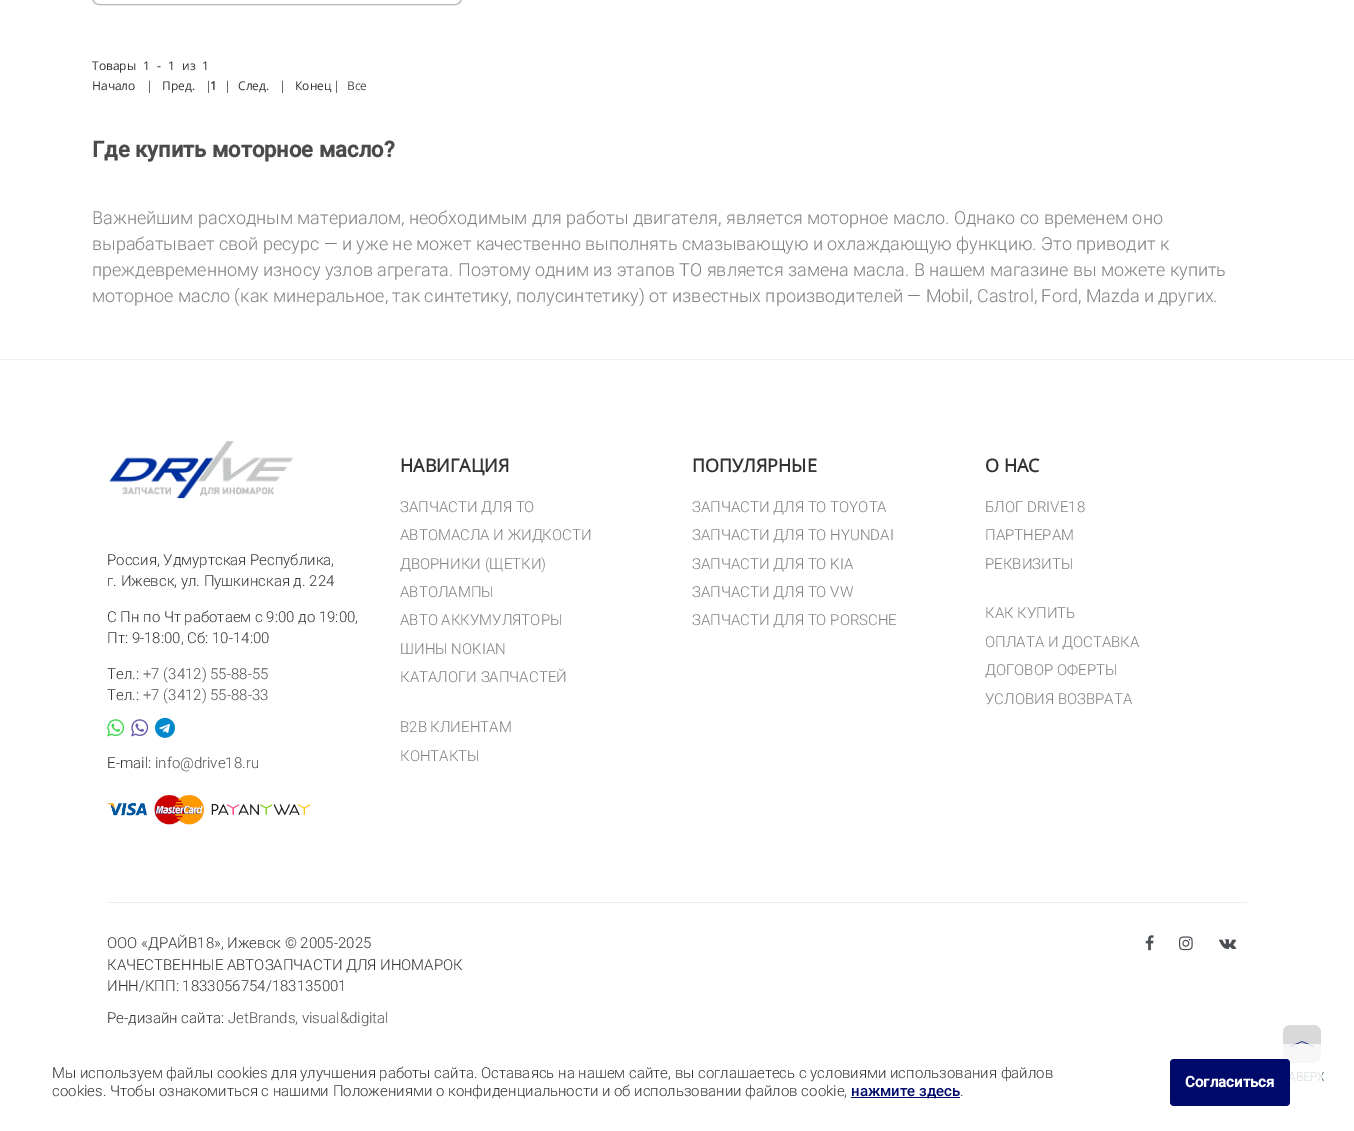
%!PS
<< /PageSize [1354 1131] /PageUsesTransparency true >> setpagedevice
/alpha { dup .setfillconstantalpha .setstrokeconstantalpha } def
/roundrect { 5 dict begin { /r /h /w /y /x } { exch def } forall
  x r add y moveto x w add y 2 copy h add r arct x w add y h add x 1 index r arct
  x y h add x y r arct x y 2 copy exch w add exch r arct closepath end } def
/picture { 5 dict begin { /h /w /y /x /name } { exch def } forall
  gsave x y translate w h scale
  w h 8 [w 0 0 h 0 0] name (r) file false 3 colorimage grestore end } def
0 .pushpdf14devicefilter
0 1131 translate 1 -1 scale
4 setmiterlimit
1 setgray
0 0 1354 1131 rectfill
0.71 setgray
92.5 -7.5 369 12 6.5 roundrect stroke
/OpenSans-Regular [12 0 0 -12 0 0] selectfont
0.2 setgray
92 70 moveto (Товары) show
143 70 moveto 4 0 32 (1 - 1 из 1) widthshow
92 90 moveto (Начало) show
146 90 moveto (|) show
162 90 moveto (Пред.) show
205 90 moveto (|) show
/OpenSans-Bold [12 0 0 -12 0 0] selectfont
210 90 moveto (1) show
/OpenSans-Regular [12 0 0 -12 0 0] selectfont
224 90 moveto (|) show
238 90 moveto (След.) show
279 90 moveto (|) show
295 90 moveto (Конец) show
333 90 moveto (|) show
0.294 0.306 0.325 setrgbcolor
347 90 moveto (Все) show
/Roboto-Bold [22 0 0 -22 0 0] selectfont
0.294 setgray
92 157 moveto (Где купить моторное масло?) show
/Roboto-Light [18 0 0 -18 0 0] selectfont
0.498 setgray
92 224 moveto (Важнейшим расходным материалом, необходимым для работы двигателя, является моторное масло. Однако со временем оно) show
92 250 moveto (вырабатывает свой ресурс — и уже не может качественно выполнять смазывающую и охлаждающую функцию. Это приводит к) show
92 276 moveto (преждевременному износу узлов агрегата. Поэтому одним из этапов ТО является замена масла. В нашем магазине вы можете купить) show
92 302 moveto (моторное масло \(как минеральное, так синтетику, полусинтетику\) от известных производителей — Mobil, Castrol, Ford, Mazda и других.) show
0.941 setgray
0 359 1354 1 rectfill
(img1.rgb) 109 441 184 58 picture
/Roboto-Light [15 0 0 -15 0 0] selectfont
0.2 setgray
107 565 moveto (Россия, Удмуртская Республика,) show
107 586 moveto (г. Ижевск, ул. Пушкинская д. 224) show
107 622 moveto (С Пн по Чт работаем с 9:00 до 19:00,) show
107 643 moveto (Пт: 9-18:00, Сб: 10-14:00) show
107 679 moveto (Тел.:) show
0.294 0.306 0.325 setrgbcolor
143 679 moveto (+7 \(3412\) 55-88-55) show
0.2 setgray
107 700 moveto (Тел.:) show
0.294 0.306 0.325 setrgbcolor
143 700 moveto (+7 \(3412\) 55-88-33) show
(img2.rgb) 107 719 18 18 picture
(img3.rgb) 131 719 18 18 picture
(img4.rgb) 155 717 20 21 picture
0.2 setgray
107 768 moveto (E-mail:) show
0.294 0.306 0.325 setrgbcolor
155 768 moveto (info@drive18.ru) show
(img5.rgb) 107 803 40 13 picture
(img6.rgb) 154 795 50 30 picture
(img7.rgb) 211 804 100 11 picture
/OpenSans-Bold [18 0 0 -18 0 0] selectfont
0.2 setgray
400 472 moveto (НАВИГАЦИЯ) show
/Roboto-Light [15 0 0 -15 0 0] selectfont
0.498 setgray
400 512 moveto (ЗАПЧАСТИ ДЛЯ ТО) show
400 540 moveto (АВТОМАСЛА И ЖИДКОСТИ) show
400 569 moveto (ДВОРНИКИ \(ЩЕТКИ\)) show
400 597 moveto (АВТОЛАМПЫ) show
400 625 moveto (АВТО АККУМУЛЯТОРЫ) show
400 654 moveto (ШИНЫ NOKIAN) show
400 682 moveto (КАТАЛОГИ ЗАПЧАСТЕЙ) show
400 732 moveto (B2B КЛИЕНТАМ) show
400 761 moveto (КОНТАКТЫ) show
/OpenSans-Bold [18 0 0 -18 0 0] selectfont
0.2 setgray
692 472 moveto (ПОПУЛЯРНЫЕ) show
/Roboto-Light [15 0 0 -15 0 0] selectfont
0.498 setgray
692 512 moveto (ЗАПЧАСТИ ДЛЯ ТО TOYOTA) show
692 540 moveto (ЗАПЧАСТИ ДЛЯ ТО HYUNDAI) show
692 569 moveto (ЗАПЧАСТИ ДЛЯ ТО KIA) show
692 597 moveto (ЗАПЧАСТИ ДЛЯ ТО VW) show
692 625 moveto (ЗАПЧАСТИ ДЛЯ ТО PORSCHE) show
/OpenSans-Bold [18 0 0 -18 0 0] selectfont
0.2 setgray
985 472 moveto (О НАС) show
/Roboto-Light [15 0 0 -15 0 0] selectfont
0.498 setgray
985 512 moveto (БЛОГ DRIVE18) show
985 540 moveto (ПАРТНЕРАМ) show
985 569 moveto (РЕКВИЗИТЫ) show
985 618 moveto (КАК КУПИТЬ) show
985 647 moveto (ОПЛАТА И ДОСТАВКА) show
985 675 moveto (ДОГОВОР ОФЕРТЫ) show
985 704 moveto (УСЛОВИЯ ВОЗВРАТА) show
0.933 setgray
107 902 1140 1 rectfill
0.2 setgray
107 948 moveto (ООО «ДРАЙВ18», Ижевск © 2005-2025) show
107 970 moveto (КАЧЕСТВЕННЫЕ АВТОЗАПЧАСТИ ДЛЯ ИНОМАРОК) show
107 991 moveto (ИНН/КПП: 1833056754/183135001) show
107 1023 moveto (Ре-дизайн сайта:) show
0.294 0.306 0.325 setrgbcolor
228 1023 moveto (JetBrands, visual&digital) show
(img8.rgb) 1145 935 9 16 picture
(img9.rgb) 1179 936 14 15 picture
(img10.rgb) 1219 939 18 10 picture
(img11.rgb) 1283 1025 41 56 picture
0.8 alpha
1 setgray
32 1044 1290 77 4 roundrect fill
1 alpha
0.2 setgray
52 1078 moveto (Мы используем файлы cookies для улучшения работы сайта. Оставаясь на нашем сайте, вы соглашаетесь с условиями использования файлов) show
52 1096 moveto (cookies. Чтобы ознакомиться с нашими Положениями о конфиденциальности и об использовании файлов cookie,) show
0 0.039 0.416 setrgbcolor
851 1097 109 1 rectfill
/Roboto-Medium [15 0 0 -15 0 0] selectfont
851 1096 moveto (нажмите здесь) show
/Roboto-Light [15 0 0 -15 0 0] selectfont
0.2 setgray
960 1096 moveto (.) show
0 0.039 0.416 setrgbcolor
1170 1059 120 47 4 roundrect fill
/Roboto-Bold [15 0 0 -15 0 0] selectfont
1 setgray
1185 1087 moveto (Согласиться) show
.poppdf14devicefilter showpage
